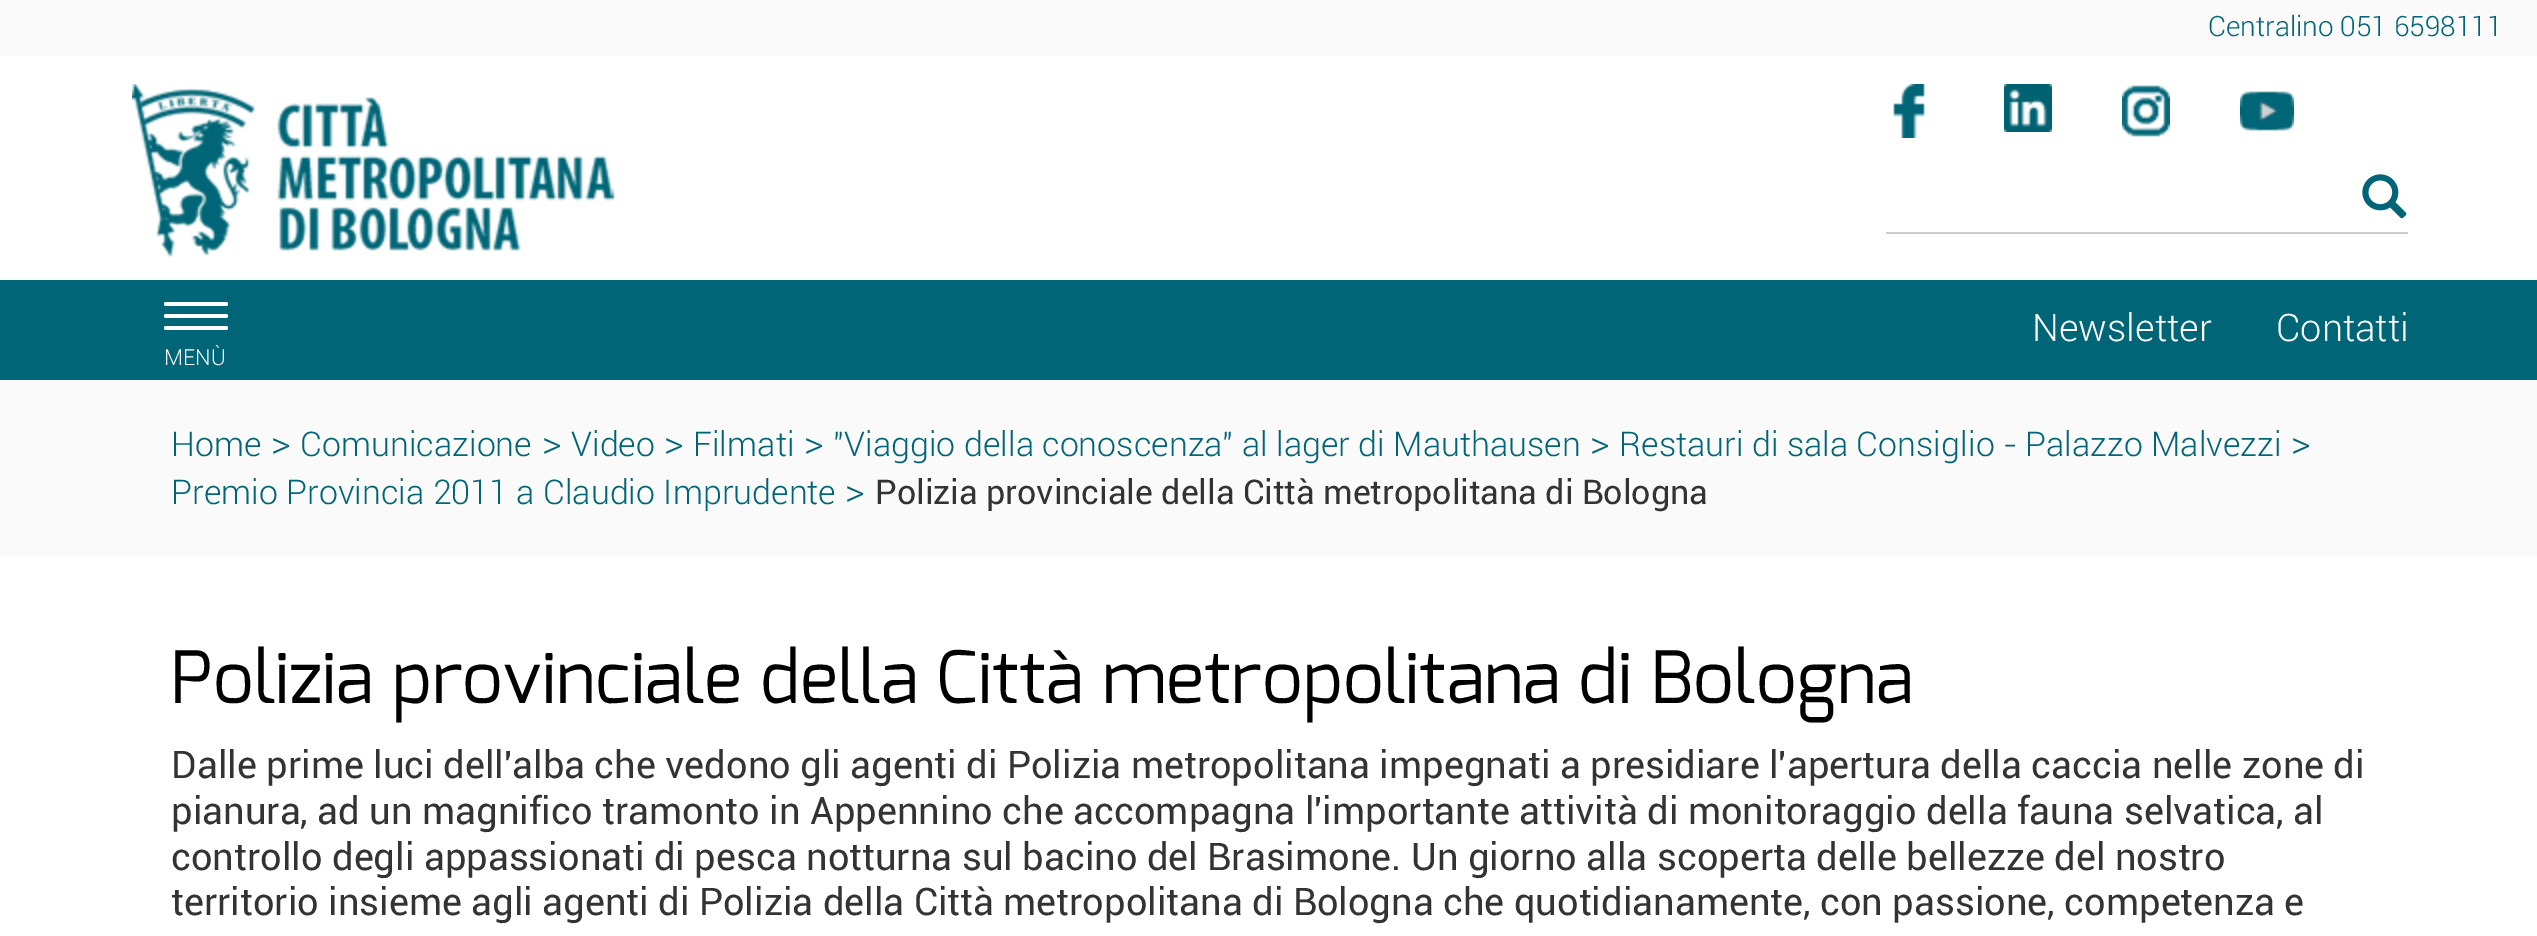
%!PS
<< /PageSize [2537 936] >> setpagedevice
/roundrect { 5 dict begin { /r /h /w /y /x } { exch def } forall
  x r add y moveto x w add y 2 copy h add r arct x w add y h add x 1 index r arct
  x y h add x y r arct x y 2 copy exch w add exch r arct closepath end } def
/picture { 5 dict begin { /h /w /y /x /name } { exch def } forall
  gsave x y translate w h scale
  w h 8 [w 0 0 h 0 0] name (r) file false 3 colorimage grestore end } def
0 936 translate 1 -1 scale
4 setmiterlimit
1 setgray
0 0 2537 936 rectfill
0.98 setgray
0 0 2537 56 rectfill
/Roboto-Light [28 0 0 -28 0 0] selectfont
0 0.4 0.467 setrgbcolor
2208 36 moveto (Centralino 051 6598111) show
(img1.rgb) 132 84 483 173 picture
(img2.rgb) 1893 84 32 54 picture
(img3.rgb) 2004 84 48 48 picture
(img4.rgb) 2122 85 48 52 picture
(img5.rgb) 2240 91 54 40 picture
(img6.rgb) 2362 174 45 45 picture
0.8 setgray
1886 232 522 2 rectfill
0 0.4 0.467 setrgbcolor
0 280 2537 100 rectfill
/Roboto-Light [38 0 0 -38 0 0] selectfont
1 setgray
2032 341 moveto (Newsletter) show
2276 341 moveto (Contatti) show
164 302 64 4 2 roundrect fill
164 314 64 4 2 roundrect fill
164 326 64 4 2 roundrect fill
/Roboto-Light [22 0 0 -22 0 0] selectfont
164 365 moveto (MENÙ) show
0.98 setgray
0 380 2537 176 rectfill
/Roboto-Light [34 0 0 -34 0 0] selectfont
0 0.4 0.467 setrgbcolor
171 456 moveto (Home) show
/Roboto-Light [38 0 0 -38 0 0] selectfont
271 456 moveto (>) show
/Roboto-Light [34 0 0 -34 0 0] selectfont
300 456 moveto (Comunicazione) show
/Roboto-Light [38 0 0 -38 0 0] selectfont
542 456 moveto (>) show
/Roboto-Light [34 0 0 -34 0 0] selectfont
571 456 moveto (Video) show
/Roboto-Light [38 0 0 -38 0 0] selectfont
664 456 moveto (>) show
/Roboto-Light [34 0 0 -34 0 0] selectfont
693 456 moveto (Filmati) show
/Roboto-Light [38 0 0 -38 0 0] selectfont
804 456 moveto (>) show
/Roboto-Light [34 0 0 -34 0 0] selectfont
833 456 moveto ("Viaggio della conoscenza" al lager di Mauthausen) show
/Roboto-Light [38 0 0 -38 0 0] selectfont
1590 456 moveto (>) show
/Roboto-Light [34 0 0 -34 0 0] selectfont
1619 456 moveto (Restauri di sala Consiglio - Palazzo Malvezzi) show
/Roboto-Light [38 0 0 -38 0 0] selectfont
2291 456 moveto (>) show
/Roboto-Light [34 0 0 -34 0 0] selectfont
171 504 moveto (Premio Provincia 2011 a Claudio Imprudente) show
/Roboto-Light [38 0 0 -38 0 0] selectfont
845 504 moveto (>) show
/Roboto-Regular [34 0 0 -34 0 0] selectfont
0.2 setgray
875 504 moveto (Polizia provinciale della Città metropolitana di Bologna) show
/Exo-Regular [72 0 0 -72 0 0] selectfont
0 setgray
171 703 moveto (Polizia provinciale della Città metropolitana di Bologna) show
/Roboto-Regular [38 0 0 -38 0 0] selectfont
0.2 setgray
171 778 moveto (Dalle prime luci dell'alba che vedono gli agenti di Polizia metropolitana impegnati a presidiare l'apertura della caccia nelle zone di) show
171 824 moveto (pianura, ad un magnifico tramonto in Appennino che accompagna l'importante attività di monitoraggio della fauna selvatica, al) show
171 870 moveto (controllo degli appassionati di pesca notturna sul bacino del Brasimone. Un giorno alla scoperta delle bellezze del nostro) show
171 915 moveto (territorio insieme agli agenti di Polizia della Città metropolitana di Bologna che quotidianamente, con passione, competenza e) show
showpage
